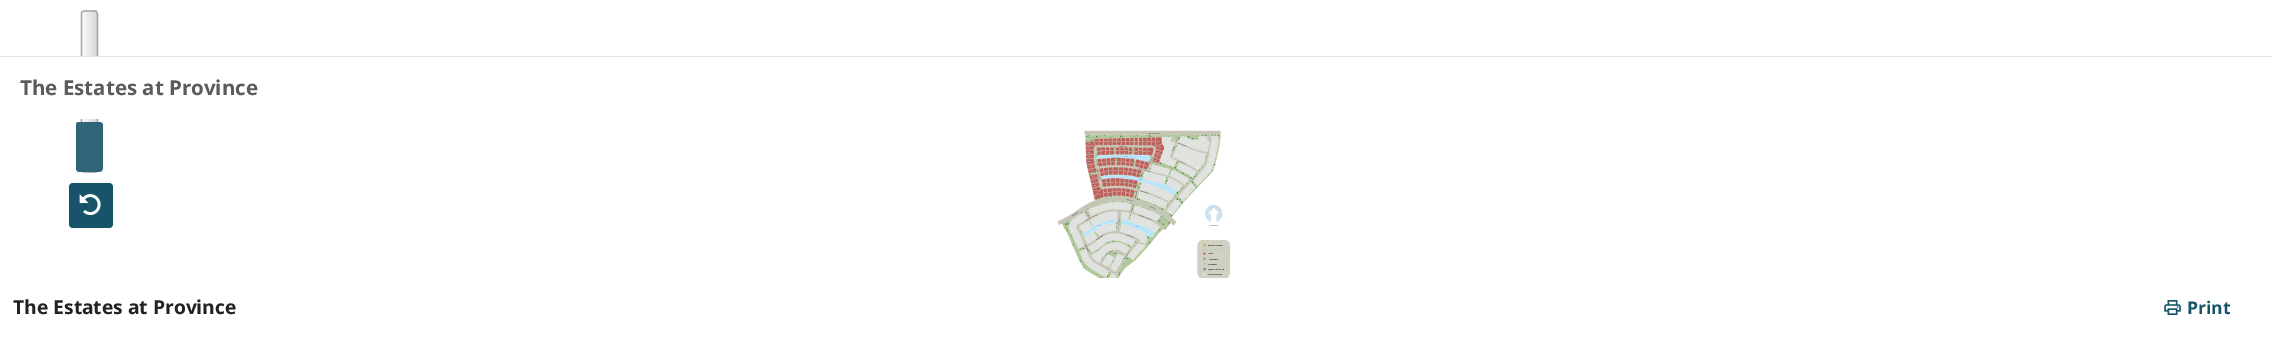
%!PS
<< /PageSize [2272 338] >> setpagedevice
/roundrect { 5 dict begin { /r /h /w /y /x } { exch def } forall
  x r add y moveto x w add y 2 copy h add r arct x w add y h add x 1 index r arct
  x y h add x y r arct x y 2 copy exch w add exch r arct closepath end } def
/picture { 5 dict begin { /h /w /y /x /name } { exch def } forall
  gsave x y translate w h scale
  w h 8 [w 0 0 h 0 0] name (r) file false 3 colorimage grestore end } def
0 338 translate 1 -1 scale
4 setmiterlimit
1 setgray
0 0 2272 338 rectfill
0.918 0.941 0.949 setrgbcolor
newpath 81 169 moveto 81 14 lineto 81 12 82 10 84 10 curveto 94 10 lineto 96 10 98 12 98 14 curveto 98 169 lineto 98 171 96 173 94 173 curveto 84 173 lineto 82 173 81 171 81 169 curveto closepath fill
gsave newpath 81 169 moveto 81 14 lineto 81 13 81 12 82 11 curveto 82 172 lineto 81 171 81 170 81 169 curveto closepath clip newpath
<< /ShadingType 2 /ColorSpace /DeviceRGB /Coords [67 92 82 92] /Extend [true true] /Function << /FunctionType 2 /Domain [0 1] /C0 [0.984 0.984 0.984] /C1 [0.835 0.839 0.843] /N 1 >> >> shfill grestore
gsave newpath 82 172 moveto 82 11 lineto 84 10 95 10 97 11 curveto 97 172 lineto 95 173 84 173 82 172 curveto closepath clip newpath
<< /ShadingType 2 /ColorSpace /DeviceRGB /Coords [82 92 97 92] /Extend [true true] /Function << /FunctionType 2 /Domain [0 1] /C0 [0.984 0.984 0.984] /C1 [0.835 0.839 0.843] /N 1 >> >> shfill grestore
gsave newpath 97 172 moveto 97 11 lineto 98 12 98 13 98 14 curveto 98 169 lineto 98 170 98 171 97 172 curveto closepath clip newpath
<< /ShadingType 2 /ColorSpace /DeviceRGB /Coords [97 92 112 92] /Extend [true true] /Function << /FunctionType 2 /Domain [0 1] /C0 [0.984 0.984 0.984] /C1 [0.835 0.839 0.843] /N 1 >> >> shfill grestore
0.643 setgray
1.2 setlinewidth
newpath 81.5 169 moveto 81.5 14 lineto 81.5 12.5 82.5 11 84.5 11 curveto 94.5 11 lineto 96 11 97.5 12.5 97.5 14 curveto 97.5 169 lineto 97.5 170.5 96 172 94.5 172 curveto 84.5 172 lineto 82.5 172 81.5 170.5 81.5 169 curveto closepath stroke
0.18 0.396 0.475 setrgbcolor
newpath 76 168 moveto 76 125 lineto 76 123 77 122 79 122 curveto 99 122 lineto 101 122 103 123 103 125 curveto 103 168 lineto 103 170 101 172 99 172 curveto 79 172 lineto 77 172 76 170 76 168 curveto closepath fill
0.09 0.329 0.416 setrgbcolor
69 183 44 45 4 roundrect fill
(img1.rgb) 79 194 22 22 picture
1 setgray
80 57 19 62 rectfill
0.886 setgray
0 56 2272 1 rectfill
/OpenSans-Bold [20.5 0 0 -20.5 0 0] selectfont
0.357 setgray
20 95 moveto (The Estates at Province) show
(img2.rgb) 1057 130 174 148 picture
/OpenSans-Bold [19.25 0 0 -19.25 0 0] selectfont
0.133 setgray
13 314 moveto (The Estates at Province) show
(img3.rgb) 2164 300 17 15 picture
/OpenSans-Bold [17.5 0 0 -17.5 0 0] selectfont
0.09 0.329 0.416 setrgbcolor
2187 314 moveto (Print) show
showpage
